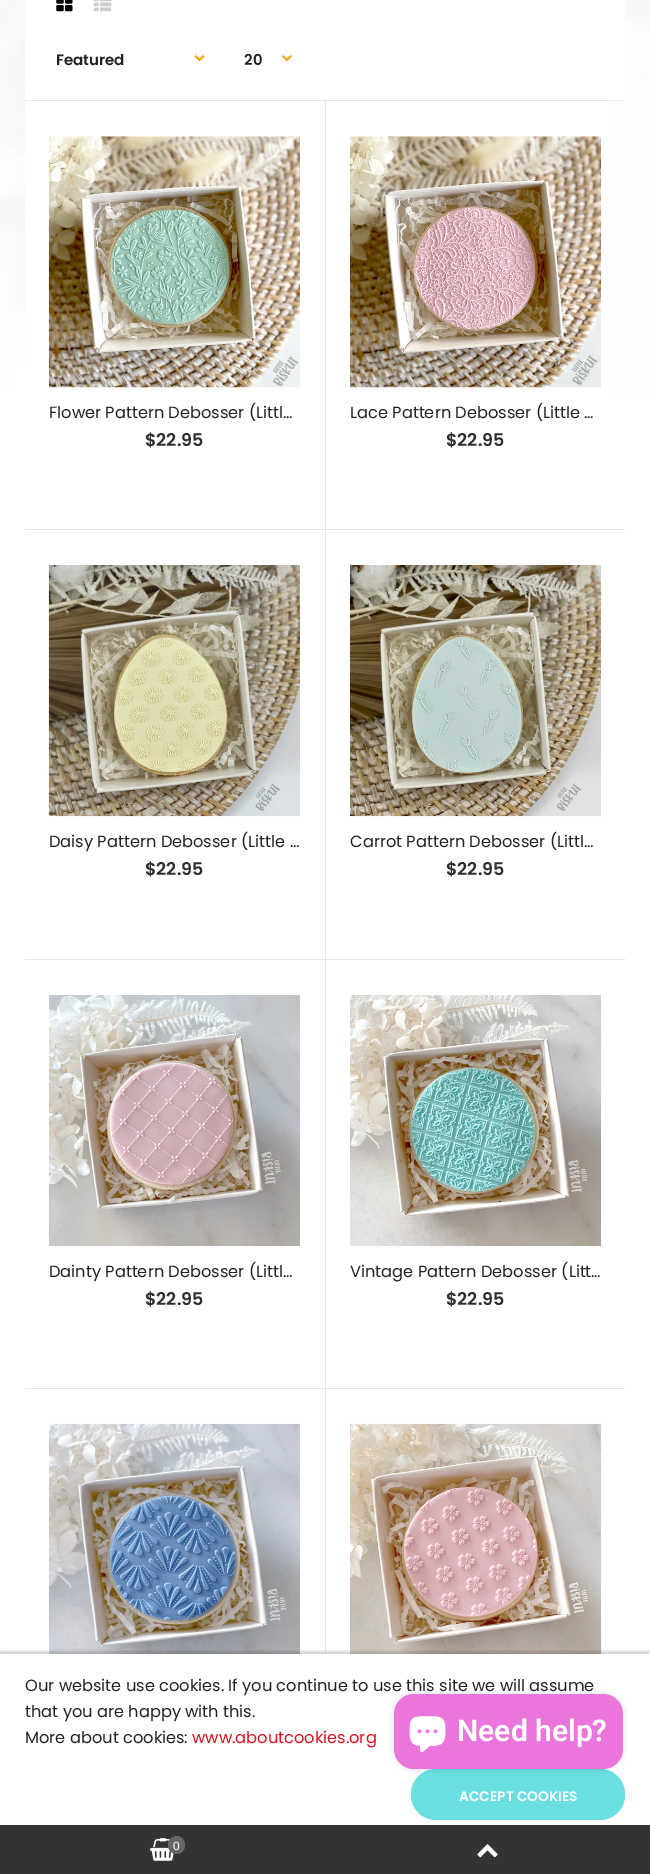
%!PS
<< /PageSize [650 1874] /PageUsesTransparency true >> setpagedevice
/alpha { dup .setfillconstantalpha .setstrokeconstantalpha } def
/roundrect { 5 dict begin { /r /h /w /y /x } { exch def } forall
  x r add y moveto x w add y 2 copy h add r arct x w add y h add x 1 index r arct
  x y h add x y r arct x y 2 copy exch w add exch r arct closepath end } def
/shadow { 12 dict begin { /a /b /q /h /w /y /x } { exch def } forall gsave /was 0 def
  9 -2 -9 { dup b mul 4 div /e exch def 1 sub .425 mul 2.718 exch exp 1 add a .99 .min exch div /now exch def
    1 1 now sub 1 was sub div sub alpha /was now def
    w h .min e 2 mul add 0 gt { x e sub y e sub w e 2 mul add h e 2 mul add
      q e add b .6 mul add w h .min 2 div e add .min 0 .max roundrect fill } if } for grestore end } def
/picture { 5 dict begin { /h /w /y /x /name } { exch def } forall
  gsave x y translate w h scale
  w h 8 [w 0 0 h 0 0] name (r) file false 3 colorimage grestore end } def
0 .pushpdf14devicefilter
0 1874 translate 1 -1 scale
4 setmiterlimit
1 setgray
0 0 650 1874 rectfill
(img1.rgb) 0 0 650 393 picture
25 0 600 100 rectfill
(img2.rgb) 56 0 17 12 picture
(img3.rgb) 93 0 19 12 picture
/Poppins-SemiBold [15 0 0 -15 0 0] selectfont
0.137 setgray
56 65 moveto (Featured) show
(img4.rgb) 194 55 11 7 picture
244 65 moveto (20) show
(img5.rgb) 281 55 11 7 picture
1 setgray
25 101 588 292 rectfill
0.898 setgray
25 100 600 1 rectfill
(img6.rgb) 48 136 252 252 picture
325 101 1 858 rectfill
/Poppins-Regular [16.25 0 0 -16.25 0 0] selectfont
0.137 setgray
49 418 moveto (Flower Pattern Debosser \(Littl…) show
/Poppins-SemiBold [17.5 0 0 -17.5 0 0] selectfont
0.176 setgray
145 446 moveto ($22.95) show
(img7.rgb) 350 136 252 252 picture
/Poppins-Regular [16.25 0 0 -16.25 0 0] selectfont
0.137 setgray
350 418 moveto (Lace Pattern Debosser \(Little …) show
/Poppins-SemiBold [17.5 0 0 -17.5 0 0] selectfont
0.176 setgray
446 446 moveto ($22.95) show
0.898 setgray
25 529 600 1 rectfill
(img8.rgb) 48 565 252 252 picture
/Poppins-Regular [16.25 0 0 -16.25 0 0] selectfont
0.137 setgray
49 847 moveto (Daisy Pattern Debosser \(Little …) show
/Poppins-SemiBold [17.5 0 0 -17.5 0 0] selectfont
0.176 setgray
145 875 moveto ($22.95) show
(img9.rgb) 350 565 252 252 picture
/Poppins-Regular [16.25 0 0 -16.25 0 0] selectfont
0.137 setgray
350 847 moveto (Carrot Pattern Debosser \(Littl…) show
/Poppins-SemiBold [17.5 0 0 -17.5 0 0] selectfont
0.176 setgray
446 875 moveto ($22.95) show
0.898 setgray
25 959 600 1 rectfill
(img10.rgb) 48 995 252 252 picture
325 960 1 694 rectfill
/Poppins-Regular [16.25 0 0 -16.25 0 0] selectfont
0.137 setgray
49 1277 moveto (Dainty Pattern Debosser \(Littl…) show
/Poppins-SemiBold [17.5 0 0 -17.5 0 0] selectfont
0.176 setgray
145 1305 moveto ($22.95) show
(img11.rgb) 350 995 252 252 picture
/Poppins-Regular [16.25 0 0 -16.25 0 0] selectfont
0.137 setgray
350 1277 moveto (Vintage Pattern Debosser \(Litt…) show
/Poppins-SemiBold [17.5 0 0 -17.5 0 0] selectfont
0.176 setgray
446 1305 moveto ($22.95) show
0.898 setgray
25 1388 600 1 rectfill
(img12.rgb) 48 1423 252 231 picture
(img13.rgb) 350 1423 252 231 picture
0.196 setgray
0 1651 650 222 0 1 0.2 shadow
0.2 setgray
0 1825 650 49 rectfill
(img14.rgb) 477 1844 21 14 picture
(img15.rgb) 150 1838 24 23 picture
0.4 setgray
168 1836 17 18 8.5 roundrect fill
/LiberationSans-Regular [12 0 0 -12 0 0] selectfont
1 setgray
173 1850 moveto (0) show
0 1654 650 171 rectfill
/Poppins-Regular [16.25 0 0 -16.25 0 0] selectfont
0.137 setgray
25 1691 moveto (Our website use cookies. If you continue to use this site we will assume) show
25 1717 moveto (that you are happy with this.) show
25 1743 moveto (More about cookies:) show
0.851 0.071 0.122 setrgbcolor
192 1743 moveto (www.aboutcookies.org) show
0.412 0.875 0.886 setrgbcolor
411 1769 214 51 25 roundrect fill
/Poppins-SemiBold [13.75 0 0 -13.75 0 0] selectfont
1 setgray
459 1801 moveto (ACCEPT COOKIES) show
0 setgray
394 1694 229 75 20 3 0.15 shadow
0.918 0.463 0.859 setrgbcolor
394 1694 229 75 20 roundrect fill
(img16.rgb) 409 1716 37 37 picture
/Roboto-SemiBold [30 0 0 -30 0 0] selectfont
1 setgray
457 1741 moveto (Need help?) show
.poppdf14devicefilter showpage
